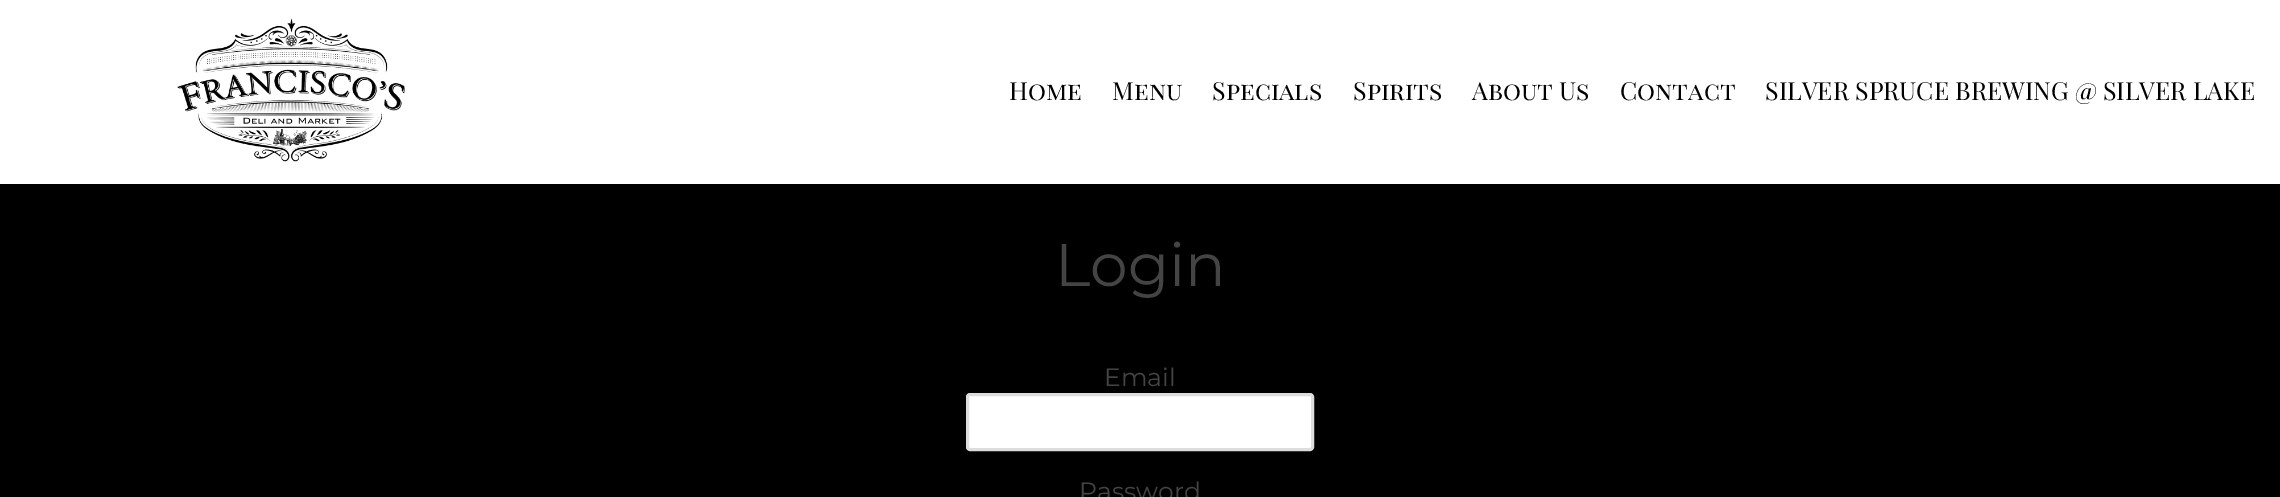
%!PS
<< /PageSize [2280 497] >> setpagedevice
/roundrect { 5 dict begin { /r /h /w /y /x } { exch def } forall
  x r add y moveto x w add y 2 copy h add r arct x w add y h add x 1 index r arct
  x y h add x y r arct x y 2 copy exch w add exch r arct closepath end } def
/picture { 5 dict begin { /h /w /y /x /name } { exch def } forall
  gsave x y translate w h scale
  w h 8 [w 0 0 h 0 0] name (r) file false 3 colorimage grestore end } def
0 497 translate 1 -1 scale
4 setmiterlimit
0 setgray
0 0 2280 497 rectfill
1 setgray
0 0 2280 184 rectfill
(img1.rgb) 177 18 228 144 picture
/PlayfairDisplaySC-Regular [25 0 0 -25 0 0] selectfont
0 setgray
1009 100 moveto (Home) show
1112 100 moveto (Menu) show
1212 100 moveto (Specials) show
1353 100 moveto (Spirits) show
1472 100 moveto (About Us) show
1620 100 moveto (Contact) show
1765 100 moveto (SILVER SPRUCE BREWING @ SILVER LAKE) show
/Montserrat-Regular [60 0 0 -60 0 0] selectfont
0.267 setgray
1055 286 moveto (Login) show
/Montserrat-Regular [25 0 0 -25 0 0] selectfont
1104 386 moveto (Email) show
1 setgray
967.5 394.5 345 55 2.5 roundrect gsave fill grestore
0.867 setgray
3 setlinewidth
stroke
0.267 setgray
1079 500 moveto (Password) show
showpage
